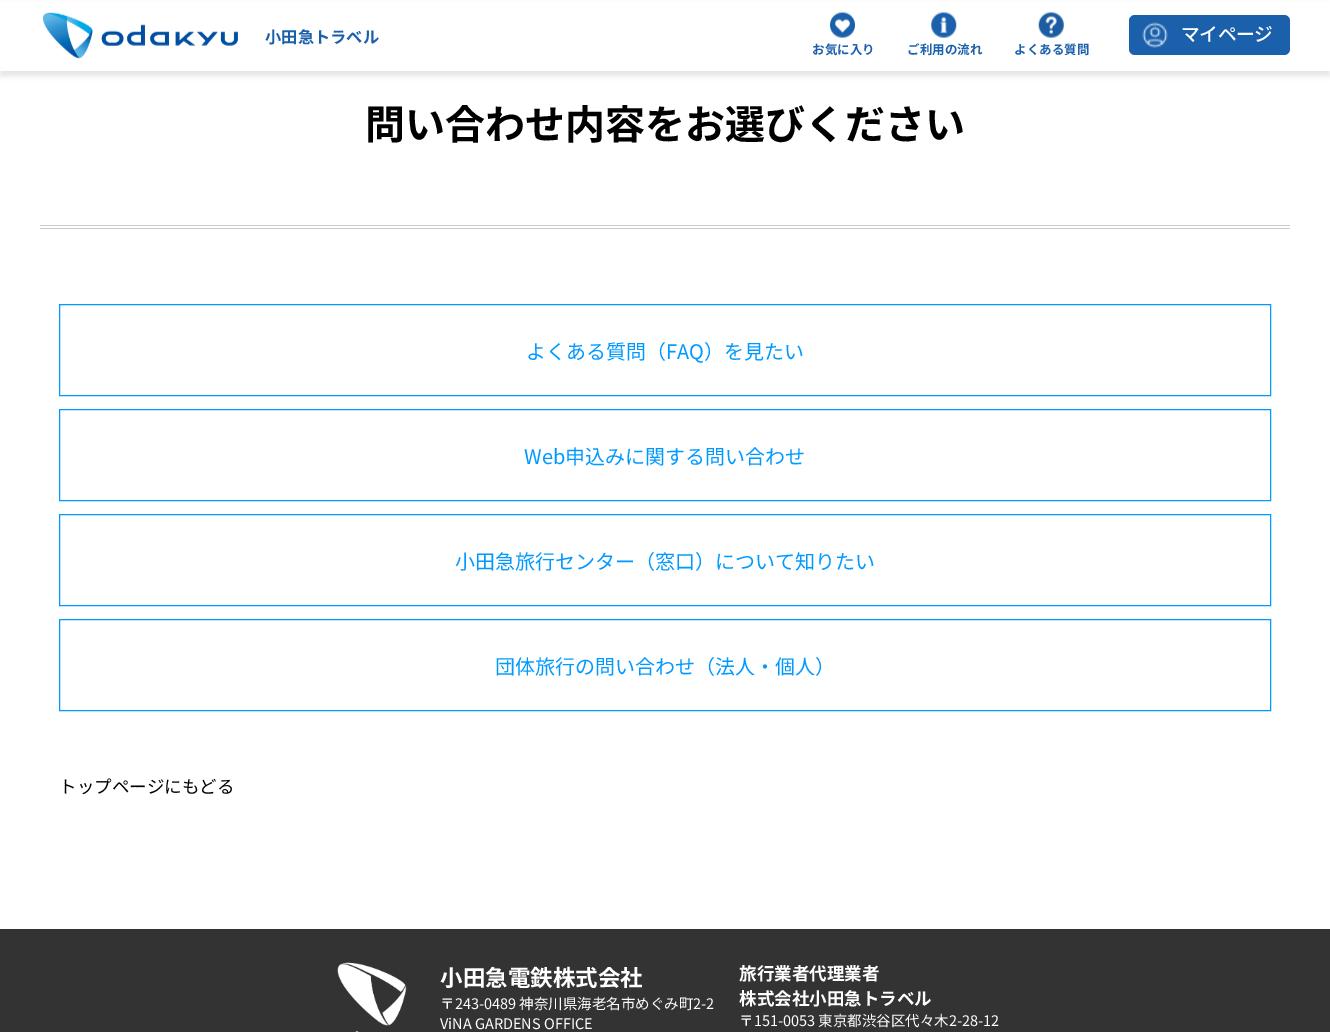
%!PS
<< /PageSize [1330 1032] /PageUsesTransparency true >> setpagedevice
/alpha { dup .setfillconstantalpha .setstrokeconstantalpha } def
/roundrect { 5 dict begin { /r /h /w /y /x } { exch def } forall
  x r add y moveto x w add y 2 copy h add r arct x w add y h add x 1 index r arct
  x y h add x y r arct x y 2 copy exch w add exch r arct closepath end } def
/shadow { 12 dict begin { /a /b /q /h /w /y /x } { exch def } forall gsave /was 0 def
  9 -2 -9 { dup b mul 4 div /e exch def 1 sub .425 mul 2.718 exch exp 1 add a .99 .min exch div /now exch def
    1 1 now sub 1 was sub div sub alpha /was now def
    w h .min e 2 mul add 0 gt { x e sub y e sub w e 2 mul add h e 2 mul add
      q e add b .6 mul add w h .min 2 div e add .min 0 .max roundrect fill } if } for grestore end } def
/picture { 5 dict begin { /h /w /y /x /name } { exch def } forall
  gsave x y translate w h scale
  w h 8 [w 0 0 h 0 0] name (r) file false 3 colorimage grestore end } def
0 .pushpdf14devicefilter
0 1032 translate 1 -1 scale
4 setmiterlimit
1 setgray
0 0 1330 1032 rectfill
0 setgray
0 5 1330 71 0 2.5 0.1 shadow
1 setgray
0 2 1330 69 rectfill
(img1.rgb) 43 12 195 47 picture
/NotoSansJP-Bold [16.25 0 0 -16.25 0 0] selectfont
0.102 0.376 0.671 setrgbcolor
265 43 moveto (小田急トラベル) show
1129 15 161 40 6 roundrect fill
(img2.rgb) 1142 22 26 26 picture
/NotoSansJP-Medium [18.75 0 0 -18.75 0 0] selectfont
1 setgray
1181 41 moveto -0.5 0 (マイページ) ashow
(img3.rgb) 830 11 25 27 picture
/NotoSansJP-Bold [12.5 0 0 -12.5 0 0] selectfont
0.102 0.376 0.671 setrgbcolor
812 54 moveto (お気に入り) show
(img4.rgb) 931 11 26 27 picture
907 54 moveto (ご利用の流れ) show
(img5.rgb) 1038 11 26 27 picture
1014 54 moveto (よくある質問) show
0.8 setgray
40 225 1250 1 rectfill
40 228 1250 1 rectfill
/NotoSansJP-Bold [40 0 0 -40 0 0] selectfont
0 setgray
365 139 moveto (問い合わせ内容をお選びください) show
0 0.6 1 setrgbcolor
59.5 304.5 1211 91 rectstroke
/NotoSansJP-Regular [20 0 0 -20 0 0] selectfont
526 359 moveto (よくある質問（FAQ）を見たい) show
59.5 409.5 1211 91 rectstroke
524 464 moveto (Web申込みに関する問い合わせ) show
59.5 514.5 1211 91 rectstroke
455 569 moveto (小田急旅行センター（窓口）について知りたい) show
59.5 619.5 1211 91 rectstroke
495 674 moveto (団体旅行の問い合わせ（法人・個人）) show
/NotoSansJP-Regular [17.5 0 0 -17.5 0 0] selectfont
0 setgray
59 793 moveto (トップページにもどる) show
0.2 setgray
0 929 1330 103 rectfill
(img6.rgb) 337 962 70 70 picture
/NotoSansJP-Bold [22.5 0 0 -22.5 0 0] selectfont
1 setgray
440 986 moveto (小田急電鉄株式会社) show
/NotoSansJP-Regular [14.5 0 0 -14.5 0 0] selectfont
440 1009 moveto (〒243-0489 神奈川県海老名市めぐみ町2-2) show
440 1029 moveto (ViNA GARDENS OFFICE) show
/NotoSansJP-Bold [17.5 0 0 -17.5 0 0] selectfont
739 980 moveto (旅行業者代理業者) show
739 1005 moveto (株式会社小田急トラベル) show
/NotoSansJP-Regular [14.5 0 0 -14.5 0 0] selectfont
739 1026 moveto (〒151-0053 東京都渋谷区代々木2-28-12) show
.poppdf14devicefilter showpage
